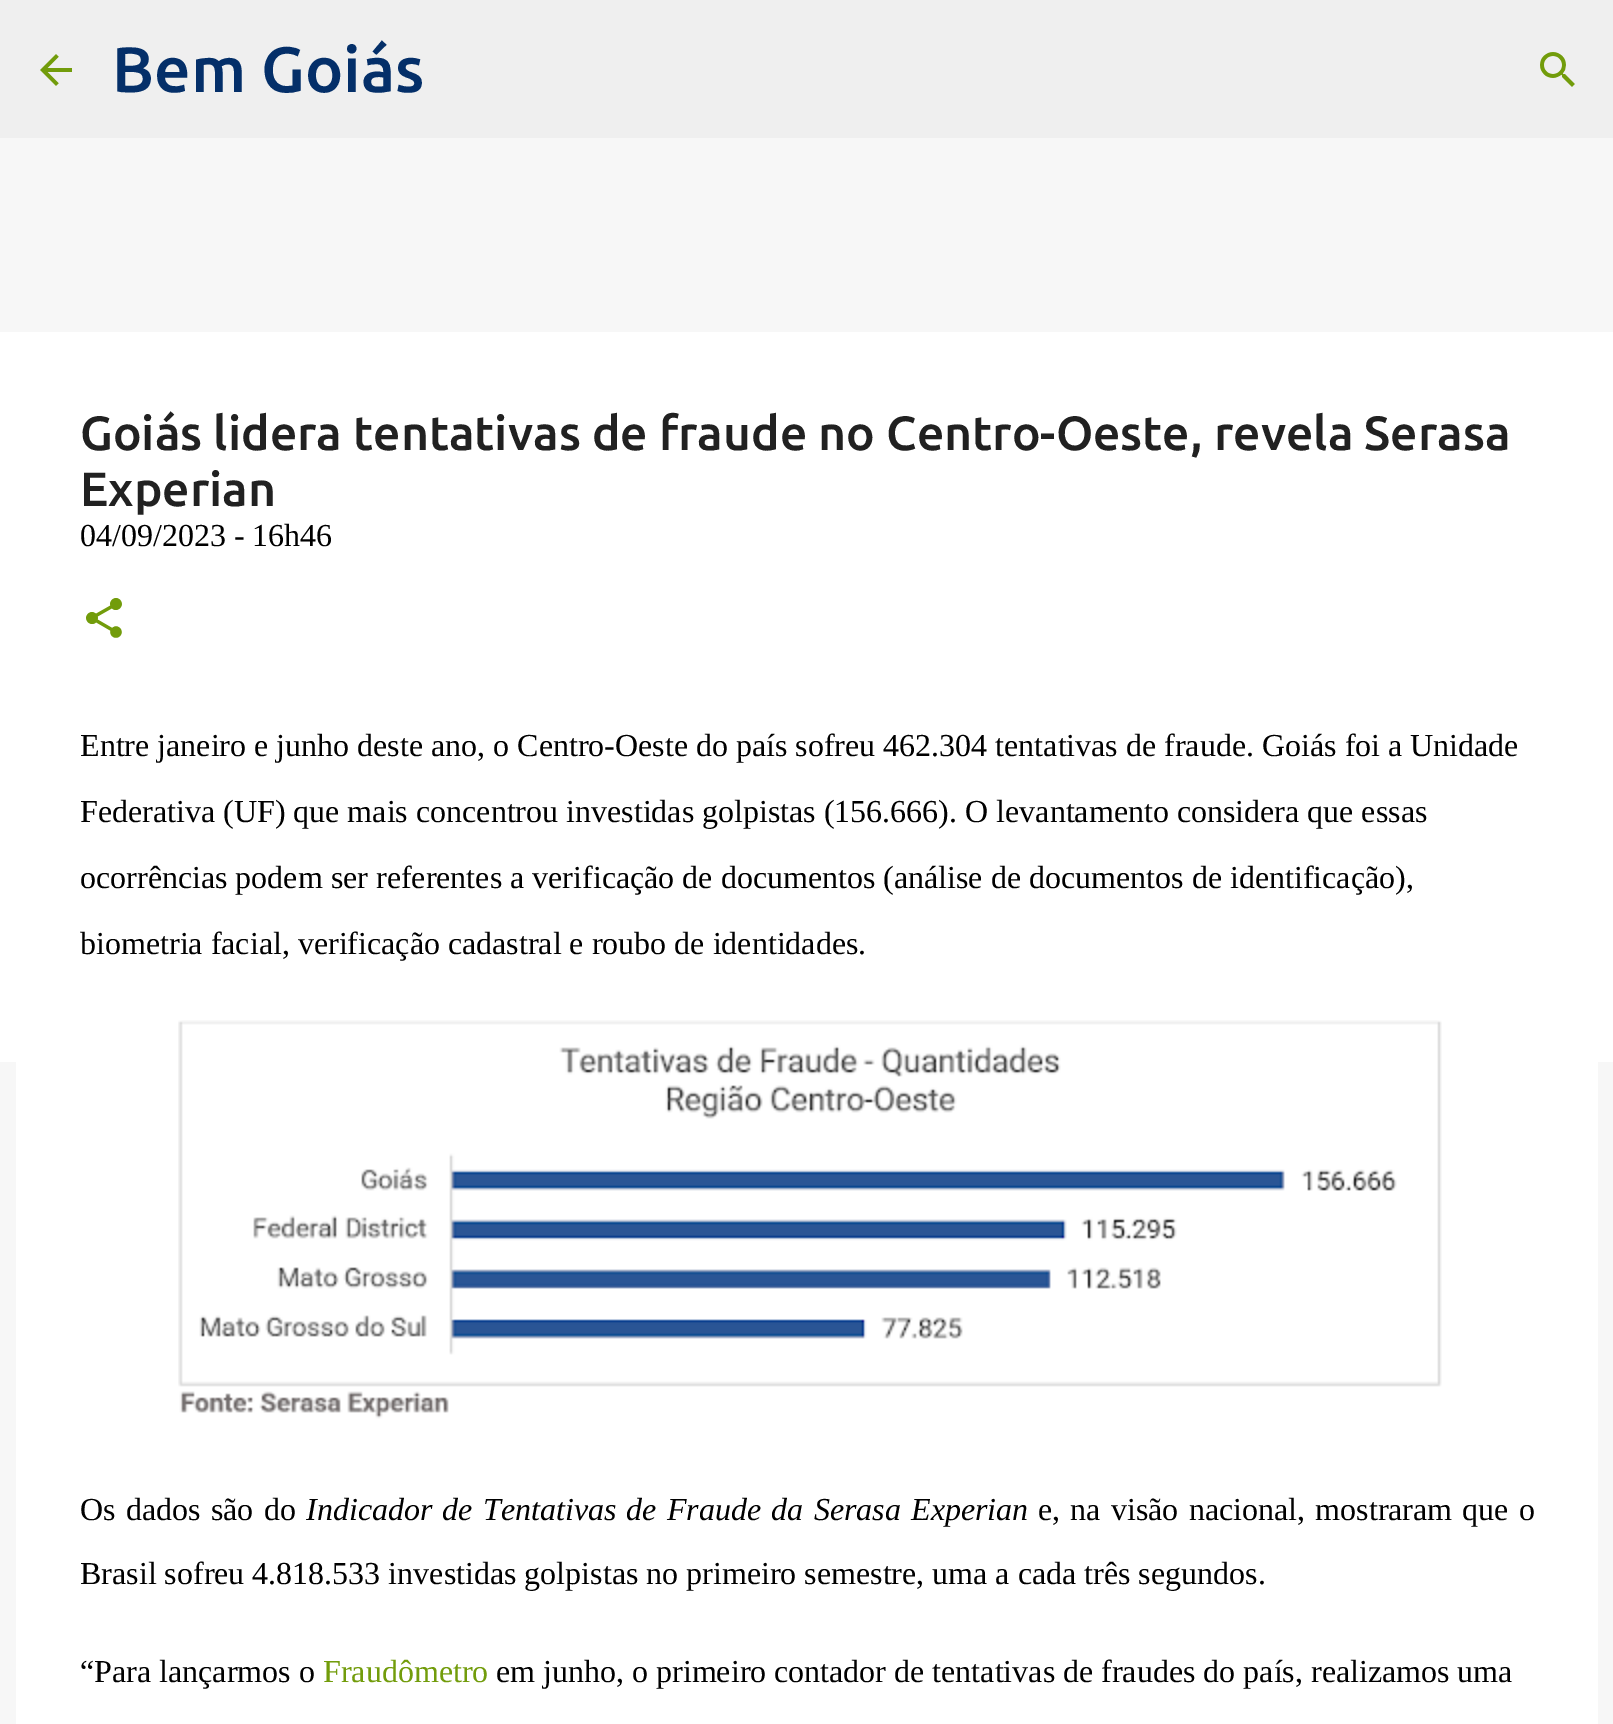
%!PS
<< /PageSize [1613 1724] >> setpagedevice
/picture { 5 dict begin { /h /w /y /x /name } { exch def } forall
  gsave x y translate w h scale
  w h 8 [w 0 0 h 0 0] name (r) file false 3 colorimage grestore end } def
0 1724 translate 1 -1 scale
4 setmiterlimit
0.969 setgray
0 0 1613 1724 rectfill
0.937 setgray
0 0 1613 138 rectfill
(img1.rgb) 40 54 32 32 picture
/Ubuntu-Medium [64 0 0 -64 0 0] selectfont
0.016 0.184 0.412 setrgbcolor
112 92 moveto (Bem Goiás) show
(img2.rgb) 1540 52 35 35 picture
1 setgray
0 332 1613 730 rectfill
16 1062 1582 662 rectfill
/Ubuntu-Medium [48 0 0 -48 0 0] selectfont
0.129 setgray
80 450 moveto (Goiás lidera tentativas de fraude no Centro-Oeste, revela Serasa) show
80 506 moveto (Experian) show
/LiberationSerif-Regular [32 0 0 -32 0 0] selectfont
0 setgray
80 546 moveto (04/09/2023 - 16h46) show
(img3.rgb) 86 598 36 40 picture
80 756 moveto (Entre janeiro e junho deste ano, o Centro-Oeste do país sofreu 462.304 tentativas de fraude. Goiás foi a Unidade) show
80 822 moveto (Federativa \(UF\) que mais concentrou investidas golpistas \(156.666\). O levantamento considera que essas) show
80 888 moveto (ocorrências podem ser referentes a verificação de documentos \(análise de documentos de identificação\),) show
80 954 moveto (biometria facial, verificação cadastral e roubo de identidades.) show
(img4.rgb) 178 1020 1264 399 picture
80 1520 moveto 2.25 0 32 (Os dados são do) widthshow
/LiberationSerif-Italic [32 0 0 -32 0 0] selectfont
306 1520 moveto 2.25 0 32 (Indicador de Tentativas de Fraude da Serasa Experian) widthshow
/LiberationSerif-Regular [32 0 0 -32 0 0] selectfont
1038 1520 moveto 2.25 0 32 (e, na visão nacional, mostraram que o) widthshow
80 1584 moveto (Brasil sofreu 4.818.533 investidas golpistas no primeiro semestre, uma a cada três segundos.) show
80 1682 moveto (“Para lançarmos o) show
0.447 0.612 0.043 setrgbcolor
323 1682 moveto (Fraudômetro) show
0 setgray
496 1682 moveto (em junho, o primeiro contador de tentativas de fraudes do país, realizamos uma) show
showpage
